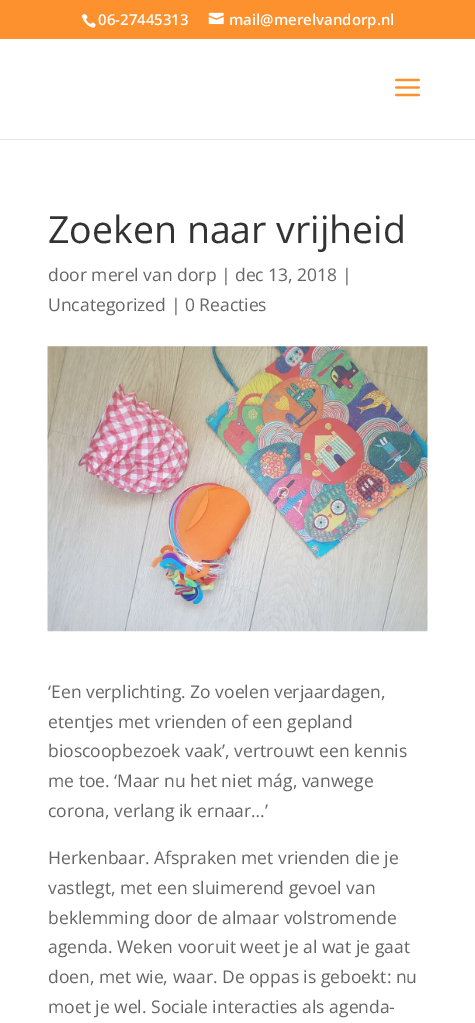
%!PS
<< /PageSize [475 1023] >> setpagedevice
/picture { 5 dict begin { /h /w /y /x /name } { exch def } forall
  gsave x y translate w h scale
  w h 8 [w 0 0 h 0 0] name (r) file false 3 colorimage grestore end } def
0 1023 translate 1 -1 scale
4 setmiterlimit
1 setgray
0 0 475 1023 rectfill
0.988 0.569 0.18 setrgbcolor
0 0 475 39 rectfill
(img1.rgb) 81 14 15 14 picture
/OpenSans-SemiBold [15 0 0 -15 0 0] selectfont
1 setgray
98 25 moveto (06-27445313) show
(img2.rgb) 208 12 16 13 picture
229 25 moveto (mail@merelvandorp.nl) show
0.902 setgray
0 139 475 1 rectfill
(img3.rgb) 395 78 25 19 picture
/OpenSans-Regular [37.5 0 0 -37.5 0 0] selectfont
0.2 setgray
48 243 moveto (Zoeken naar vrijheid) show
/OpenSans-Regular [17.5 0 0 -17.5 0 0] selectfont
0.4 setgray
48 281 moveto (door merel van dorp | dec 13, 2018 |) show
48 311 moveto (Uncategorized | 0 Reacties) show
(img4.rgb) 47 346 381 286 picture
48 698 moveto (‘Een verplichting. Zo voelen verjaardagen,) show
48 728 moveto (etentjes met vrienden of een gepland) show
48 757 moveto (bioscoopbezoek vaak’, vertrouwt een kennis) show
48 787 moveto (me toe. ‘Maar nu het niet mág, vanwege) show
48 817 moveto (corona, verlang ik ernaar…’) show
48 864 moveto (Herkenbaar. Afspraken met vrienden die je) show
48 894 moveto (vastlegt, met een sluimerend gevoel van) show
48 924 moveto (beklemming door de almaar volstromende) show
48 953 moveto (agenda. Weken vooruit weet je al wat je gaat) show
48 983 moveto (doen, met wie, waar. De oppas is geboekt: nu) show
48 1013 moveto (moet je wel. Sociale interacties als agenda-) show
showpage
